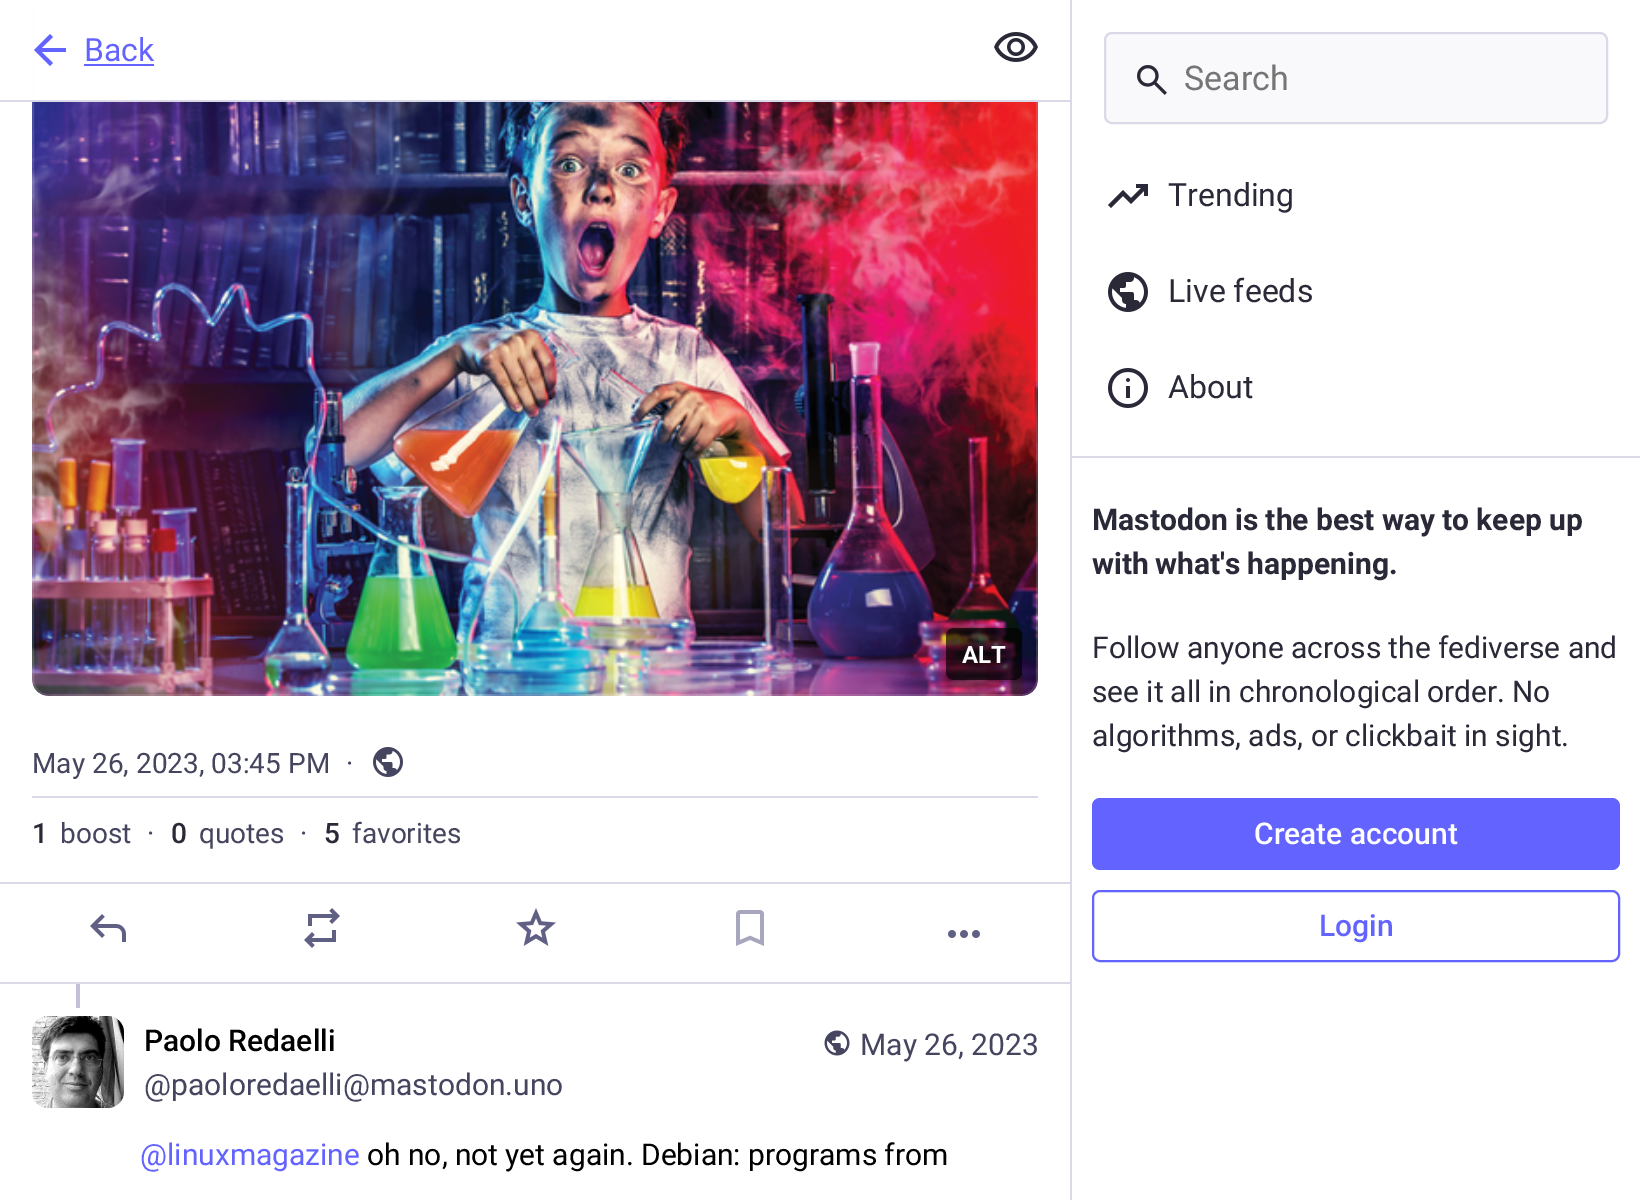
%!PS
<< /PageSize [1640 1200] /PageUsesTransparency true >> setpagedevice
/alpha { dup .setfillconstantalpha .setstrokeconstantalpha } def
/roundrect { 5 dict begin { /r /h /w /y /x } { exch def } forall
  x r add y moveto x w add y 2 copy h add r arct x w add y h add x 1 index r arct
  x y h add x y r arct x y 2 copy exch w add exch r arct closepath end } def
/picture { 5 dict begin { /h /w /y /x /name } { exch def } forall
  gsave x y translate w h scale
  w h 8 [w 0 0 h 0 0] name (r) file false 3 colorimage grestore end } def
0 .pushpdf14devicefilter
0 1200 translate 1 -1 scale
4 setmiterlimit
1 setgray
0 0 1640 1200 rectfill
(img2.rgb) 32 102 1006 594 picture
0.15 alpha
0.988 0.973 1 setrgbcolor
2 setlinewidth
33 -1 1004 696 15 roundrect stroke
1 alpha
0.851 0.851 0.91 setrgbcolor
0 100 1070 2 rectfill
0.388 0.392 1 setrgbcolor
newpath 41.5 52 moveto 53 63 lineto 50 66 lineto 34 50 lineto 50 34 lineto 53 37 lineto 41.5 48 lineto 66 48 lineto 66 52 lineto closepath fill
/Roboto-Regular [32 0 0 -32 0 0] selectfont
84 61 moveto (Back) show
84 64 70 2 rectfill
(img1.rgb) 994 32 44 30 picture
0.65 alpha
0 setgray
946 628 76 52 8 roundrect fill
/Roboto-Bold [24 0 0 -24 0 0] selectfont
1 alpha
1 setgray
962 663 moveto (ALT) show
0.851 0.851 0.91 setrgbcolor
32 796 1006 2 rectfill
/Roboto-Regular [28 0 0 -28 0 0] selectfont
0.271 0.271 0.373 setrgbcolor
32 773 moveto (May 26, 2023, 03:45 PM) show
346 773 moveto (·) show
(img3.rgb) 373 747 30 30 picture
/Roboto-Medium [28 0 0 -28 0 0] selectfont
0.161 0.161 0.22 setrgbcolor
32 843 moveto (1) show
/Roboto-Regular [28 0 0 -28 0 0] selectfont
0.271 0.271 0.373 setrgbcolor
60 843 moveto (boost) show
147 843 moveto (·) show
/Roboto-Medium [28 0 0 -28 0 0] selectfont
0.161 0.161 0.22 setrgbcolor
171 843 moveto (0) show
/Roboto-Regular [28 0 0 -28 0 0] selectfont
0.271 0.271 0.373 setrgbcolor
199 843 moveto (quotes) show
300 843 moveto (·) show
/Roboto-Medium [28 0 0 -28 0 0] selectfont
0.161 0.161 0.22 setrgbcolor
324 843 moveto (5) show
/Roboto-Regular [28 0 0 -28 0 0] selectfont
0.271 0.271 0.373 setrgbcolor
352 843 moveto (favorites) show
0.851 0.851 0.91 setrgbcolor
0 882 1070 2 rectfill
0 982 1070 2 rectfill
(img4.rgb) 90 914 36 28 picture
(img5.rgb) 304 908 36 40 picture
(img6.rgb) 516 908 40 38 picture
(img7.rgb) 736 910 28 36 picture
(img8.rgb) 948 930 32 8 picture
0.776 0.749 0.851 setrgbcolor
76 984 4 24 rectfill
0.91 0.902 0.941 setrgbcolor
32 1016 92 92 16 roundrect fill
(img9.rgb) 32 1016 92 92 picture
/Roboto-Medium [30 0 0 -30 0 0] selectfont
0 setgray
144 1051 moveto (Paolo Redaelli) show
/Roboto-Regular [30 0 0 -30 0 0] selectfont
0.271 0.271 0.373 setrgbcolor
144 1095 moveto (@paoloredaelli@mastodon.uno) show
(img10.rgb) 824 1030 26 26 picture
860 1055 moveto (May 26, 2023) show
0.388 0.392 1 setrgbcolor
140 1165 moveto (@linuxmagazine) show
0 setgray
367 1165 moveto -0.25 0 32 (oh no, not yet again. Debian: programs from) widthshow
0.851 0.851 0.91 setrgbcolor
1070 0 2 1200 rectfill
0.976 0.976 0.984 setrgbcolor
1105 33 502 90 7 roundrect gsave fill grestore
0.851 0.851 0.91 setrgbcolor
stroke
(img11.rgb) 1137 65 30 30 picture
/Roboto-Regular [34 0 0 -34 0 0] selectfont
0.459 setgray
1184 90 moveto (Search) show
0.161 0.161 0.22 setrgbcolor
newpath 1111 208 moveto 1108 205 lineto 1123 190 lineto 1131 198 lineto 1141 188 lineto 1136 188 lineto 1136 184 lineto 1148 184 lineto 1148 196 lineto 1144 196 lineto 1144 191 lineto 1131 204 lineto 1123 196 lineto closepath fill
/Roboto-Regular [32 0 0 -32 0 0] selectfont
1168 206 moveto (Trending) show
(img12.rgb) 1108 272 40 40 picture
1168 302 moveto (Live feeds) show
(img13.rgb) 1108 368 40 40 picture
1168 398 moveto (About) show
0.851 0.851 0.91 setrgbcolor
1072 456 568 2 rectfill
/Roboto-Bold [30 0 0 -30 0 0] selectfont
0.161 0.161 0.22 setrgbcolor
1092 530 moveto -0.25 0 32 (Mastodon is the best way to keep up) widthshow
1092 574 moveto -1 0 32 (with what's happening.) widthshow
/Roboto-Regular [30 0 0 -30 0 0] selectfont
1092 658 moveto -0.25 0 32 (Follow anyone across the fediverse and) widthshow
1092 702 moveto -0.5 0 32 (see it all in chronological order. No) widthshow
1092 746 moveto (algorithms, ads, or clickbait in sight.) show
0.388 0.392 1 setrgbcolor
1092 798 528 72 8 roundrect fill
/Roboto-Medium [30 0 0 -30 0 0] selectfont
1 setgray
1254 844 moveto (Create account) show
0.388 0.392 1 setrgbcolor
1093 891 526 70 7 roundrect stroke
1319 936 moveto (Login) show
.poppdf14devicefilter showpage
